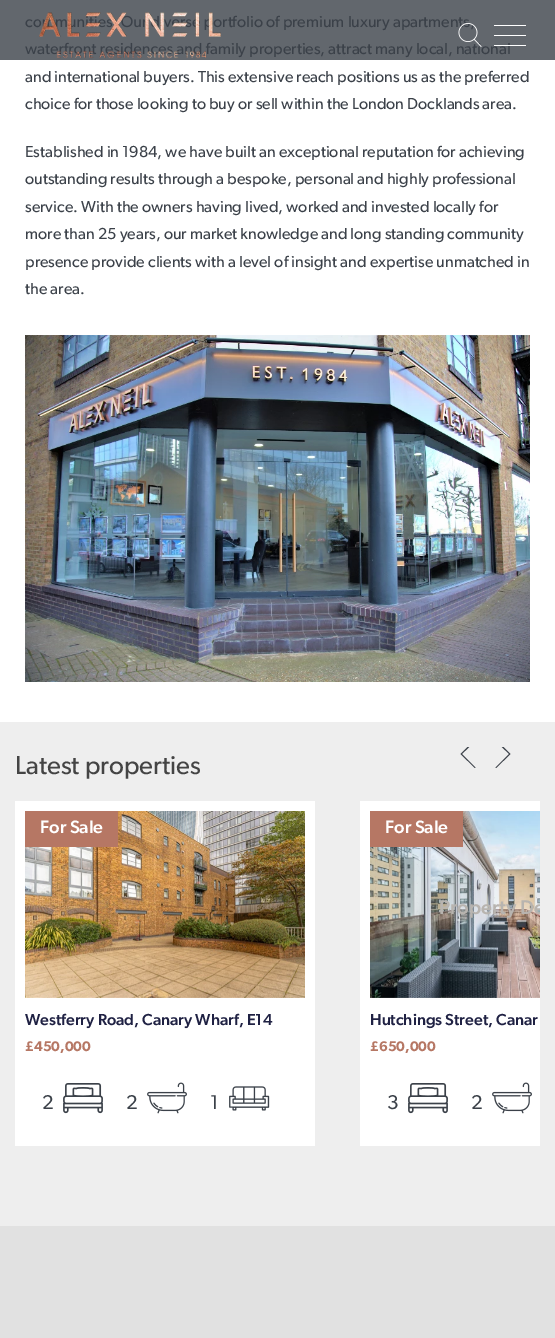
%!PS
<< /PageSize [555 1338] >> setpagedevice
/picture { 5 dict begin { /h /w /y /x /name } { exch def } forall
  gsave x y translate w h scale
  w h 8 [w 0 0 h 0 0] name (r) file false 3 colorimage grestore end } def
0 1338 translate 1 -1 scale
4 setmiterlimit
1 setgray
0 0 555 1338 rectfill
0.384 0.404 0.427 setrgbcolor
0 0 555 60 rectfill
/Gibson-Regular [16 0 0 -16 0 0] selectfont
0.231 0.255 0.286 setrgbcolor
25 27 moveto (communities. Our diverse portfolio of premium luxury apartments,) show
25 54 moveto (waterfront residences and family properties, attract many local, national) show
(img1.rgb) 39 12 182 47 picture
(img2.rgb) 458 23 24 24 picture
1 setgray
494 25 32 1 rectfill
494 35 32 1 rectfill
494 45 32 1 rectfill
0.231 0.255 0.286 setrgbcolor
25 82 moveto (and international buyers. This extensive reach positions us as the preferred) show
25 109 moveto (choice for those looking to buy or sell within the London Docklands area.) show
25 157 moveto (Established in 1984, we have built an exceptional reputation for achieving) show
25 184 moveto (outstanding results through a bespoke, personal and highly professional) show
25 212 moveto (service. With the owners having lived, worked and invested locally for) show
25 239 moveto (more than 25 years, our market knowledge and long standing community) show
25 267 moveto (presence provide clients with a level of insight and expertise unmatched in) show
25 294 moveto (the area.) show
(img3.rgb) 25 335 505 347 picture
0.933 setgray
0 722 555 504 rectfill
/Gibson-Regular [26 0 0 -26 0 0] selectfont
0.267 setgray
15 774 moveto (Latest properties) show
gsave
15 747 525 454 rectclip
0.231 0.255 0.286 setrgbcolor
newpath 475 768 moveto 460.5 754 lineto 475 740 lineto 475.5 740.5 lineto 462 754 lineto 475.5 767.5 lineto closepath 496 740 moveto 510.5 754 lineto 496 768 lineto 495.5 767.5 lineto 509 754 lineto 495.5 740.5 lineto closepath fill
grestore
1 setgray
15 801 300 345 rectfill
(img4.rgb) 25 811 280 187 picture
0.714 0.467 0.392 setrgbcolor
25 811 93 36 rectfill
/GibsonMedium-Medium [18 0 0 -18 0 0] selectfont
1 setgray
40 833 moveto (For Sale) show
/GibsonMedium-Medium [20 0 0 -20 0 0] selectfont
0.635 0.463 0.282 setrgbcolor
227 914 moveto (s) show
/GibsonMedium-Medium [16 0 0 -16 0 0] selectfont
0.122 0.129 0.263 setrgbcolor
25 1025 moveto (Westferry Road, Canary Wharf, E14) show
/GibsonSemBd-SemiBold [14 0 0 -14 0 0] selectfont
0.714 0.467 0.392 setrgbcolor
25 1051 moveto (£450,000) show
/Gibson-Regular [20 0 0 -20 0 0] selectfont
0.231 0.255 0.286 setrgbcolor
42 1109 moveto (2) show
(img5.rgb) 63 1083 40 31 picture
126 1109 moveto (2) show
(img6.rgb) 147 1082 40 32 picture
210 1109 moveto (1) show
(img7.rgb) 229 1086 41 25 picture
1 setgray
360 801 180 345 rectfill
(img8.rgb) 370 811 170 187 picture
0.714 0.467 0.392 setrgbcolor
370 811 93 36 rectfill
/GibsonMedium-Medium [18 0 0 -18 0 0] selectfont
1 setgray
385 833 moveto (For Sale) show
gsave
15 801 525 400 rectclip
/GibsonMedium-Medium [20 0 0 -20 0 0] selectfont
0.722 0.706 0.686 setrgbcolor
439 914 moveto (Property De) show
grestore
/GibsonMedium-Medium [16 0 0 -16 0 0] selectfont
0.122 0.129 0.263 setrgbcolor
370 1025 moveto (Hutchings Street, Canar) show
/GibsonSemBd-SemiBold [14 0 0 -14 0 0] selectfont
0.714 0.467 0.392 setrgbcolor
370 1051 moveto (£650,000) show
/Gibson-Regular [20 0 0 -20 0 0] selectfont
0.231 0.255 0.286 setrgbcolor
387 1109 moveto (3) show
(img5.rgb) 408 1083 40 31 picture
471 1109 moveto (2) show
(img6.rgb) 492 1082 40 32 picture
0.882 setgray
0 1226 555 112 rectfill
showpage
